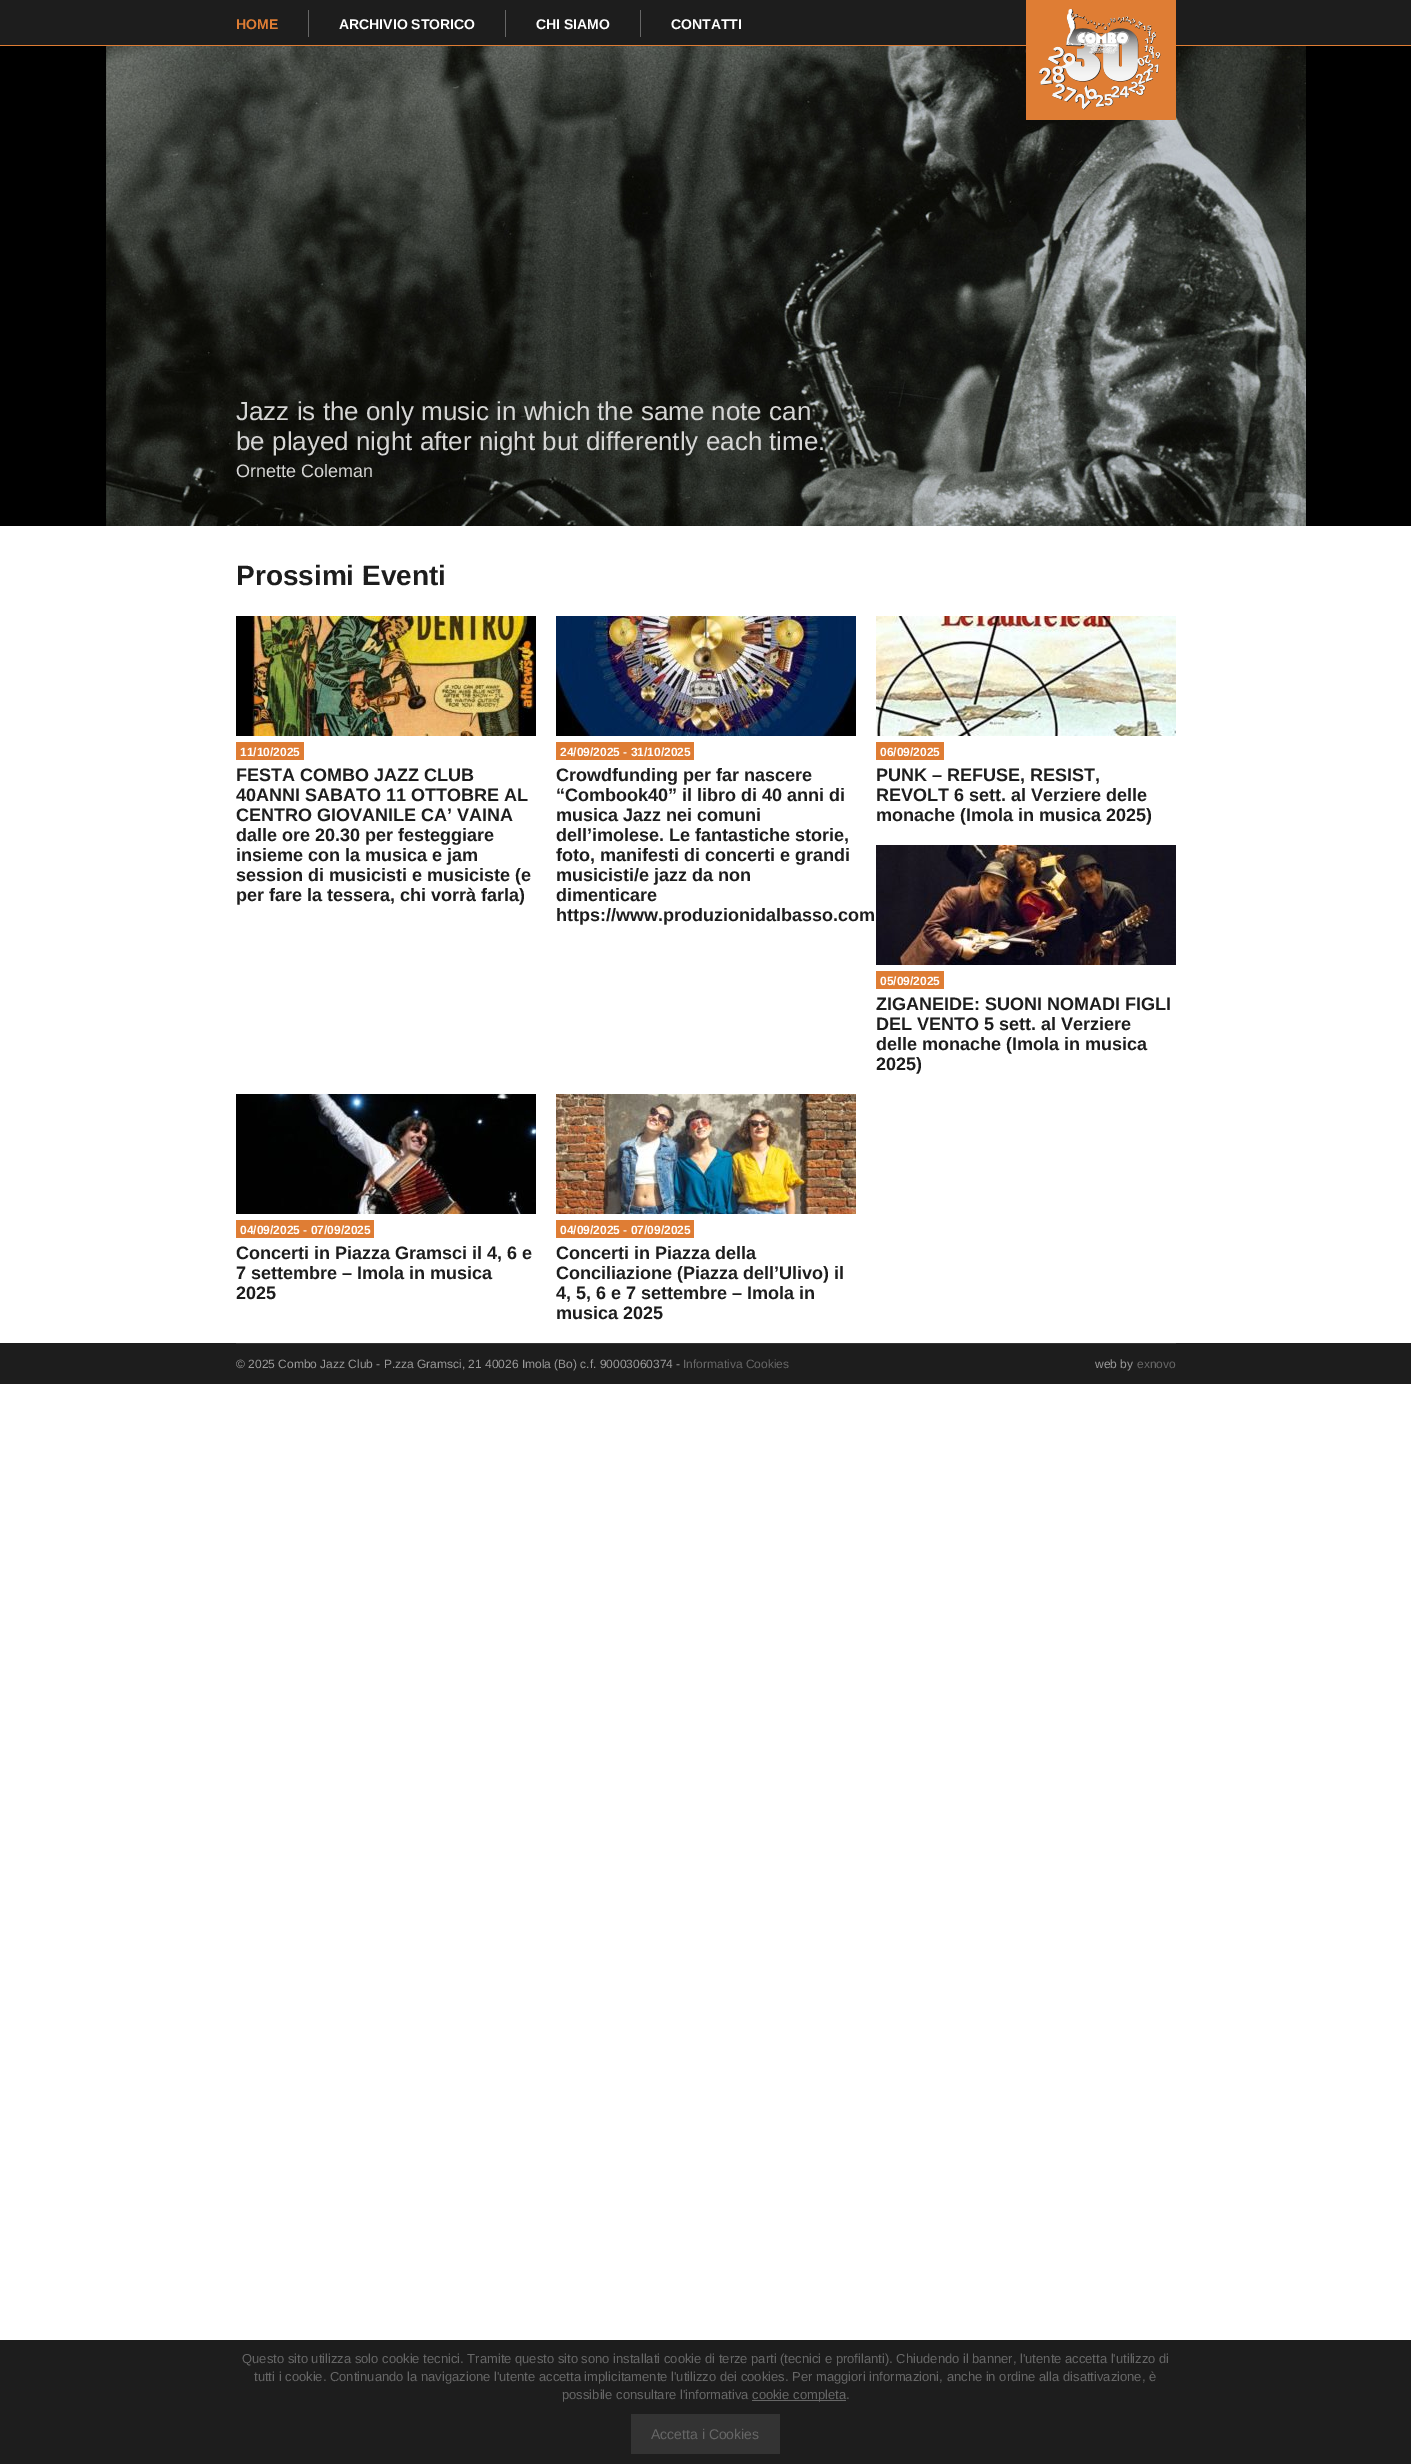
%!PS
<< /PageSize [1411 2464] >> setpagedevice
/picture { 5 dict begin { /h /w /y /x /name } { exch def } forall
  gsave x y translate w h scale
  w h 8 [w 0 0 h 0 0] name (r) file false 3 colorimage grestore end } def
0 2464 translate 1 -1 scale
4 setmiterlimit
1 setgray
0 0 1411 2464 rectfill
0.114 setgray
0 0 1411 45 rectfill
0.875 0.49 0.204 setrgbcolor
0 45 1411 1 rectfill
/LiberationSans-Bold [14 0 0 -14 0 0] selectfont
236 29 moveto (HOME) show
0.4 setgray
308 10 1 27 rectfill
1 setgray
339 29 moveto (ARCHIVIO STORICO) show
0.4 setgray
505 10 1 27 rectfill
1 setgray
536 29 moveto (CHI SIAMO) show
0.4 setgray
640 10 1 27 rectfill
1 setgray
671 29 moveto (CONTATTI) show
0 setgray
0 46 1411 480 rectfill
(img2.rgb) 106 46 1200 480 picture
0.875 0.49 0.204 setrgbcolor
1026 0 150 120 rectfill
(img1.rgb) 1039 9 122 101 picture
/LiberationSans-Regular [26 0 0 -26 0 0] selectfont
0.839 0.839 0.835 setrgbcolor
236 420 moveto (Jazz is the only music in which the same note can) show
236 450 moveto (be played night after night but differently each time.) show
/LiberationSans-Regular [18 0 0 -18 0 0] selectfont
236 477 moveto (Ornette Coleman) show
/LiberationSans-Bold [28 0 0 -28 0 0] selectfont
0.114 setgray
236 585 moveto (Prossimi Eventi) show
(img3.rgb) 236 616 300 120 picture
0.875 0.49 0.204 setrgbcolor
236 742 68 18 rectfill
/LiberationSans-Bold [12 0 0 -12 0 0] selectfont
1 setgray
240 756 moveto (11/10/2025) show
/LiberationSans-Bold [18 0 0 -18 0 0] selectfont
0.114 setgray
236 781 moveto (FESTA COMBO JAZZ CLUB) show
236 801 moveto (40ANNI SABATO 11 OTTOBRE AL) show
236 821 moveto (CENTRO GIOVANILE CA’ VAINA) show
236 841 moveto (dalle ore 20.30 per festeggiare) show
236 861 moveto (insieme con la musica e jam) show
236 881 moveto (session di musicisti e musiciste \(e) show
236 901 moveto (per fare la tessera, chi vorrà farla\)) show
(img4.rgb) 556 616 300 120 picture
0.875 0.49 0.204 setrgbcolor
556 742 138 18 rectfill
/LiberationSans-Bold [12 0 0 -12 0 0] selectfont
1 setgray
560 756 moveto (24/09/2025 - 31/10/2025) show
/LiberationSans-Bold [18 0 0 -18 0 0] selectfont
0.114 setgray
556 781 moveto (Crowdfunding per far nascere) show
556 801 moveto (“Combook40” il libro di 40 anni di) show
556 821 moveto (musica Jazz nei comuni) show
556 841 moveto (dell’imolese. Le fantastiche storie,) show
556 861 moveto (foto, manifesti di concerti e grandi) show
556 881 moveto (musicisti/e jazz da non) show
556 901 moveto (dimenticare) show
556 921 moveto (https://www.produzionidalbasso.com) show
(img5.rgb) 876 616 300 120 picture
0.875 0.49 0.204 setrgbcolor
876 742 68 18 rectfill
/LiberationSans-Bold [12 0 0 -12 0 0] selectfont
1 setgray
880 756 moveto (06/09/2025) show
/LiberationSans-Bold [18 0 0 -18 0 0] selectfont
0.114 setgray
876 781 moveto (PUNK – REFUSE, RESIST,) show
876 801 moveto (REVOLT 6 sett. al Verziere delle) show
876 821 moveto (monache \(Imola in musica 2025\)) show
(img6.rgb) 876 845 300 120 picture
0.875 0.49 0.204 setrgbcolor
876 971 68 18 rectfill
/LiberationSans-Bold [12 0 0 -12 0 0] selectfont
1 setgray
880 985 moveto (05/09/2025) show
/LiberationSans-Bold [18 0 0 -18 0 0] selectfont
0.114 setgray
876 1010 moveto (ZIGANEIDE: SUONI NOMADI FIGLI) show
876 1030 moveto (DEL VENTO 5 sett. al Verziere) show
876 1050 moveto (delle monache \(Imola in musica) show
876 1070 moveto (2025\)) show
(img7.rgb) 236 1094 300 120 picture
0.875 0.49 0.204 setrgbcolor
236 1220 138 18 rectfill
/LiberationSans-Bold [12 0 0 -12 0 0] selectfont
1 setgray
240 1234 moveto (04/09/2025 - 07/09/2025) show
/LiberationSans-Bold [18 0 0 -18 0 0] selectfont
0.114 setgray
236 1259 moveto (Concerti in Piazza Gramsci il 4, 6 e) show
236 1279 moveto (7 settembre – Imola in musica) show
236 1299 moveto (2025) show
(img8.rgb) 556 1094 300 120 picture
0.875 0.49 0.204 setrgbcolor
556 1220 138 18 rectfill
/LiberationSans-Bold [12 0 0 -12 0 0] selectfont
1 setgray
560 1234 moveto (04/09/2025 - 07/09/2025) show
/LiberationSans-Bold [18 0 0 -18 0 0] selectfont
0.114 setgray
556 1259 moveto (Concerti in Piazza della) show
556 1279 moveto (Conciliazione \(Piazza dell’Ulivo\) il) show
556 1299 moveto (4, 5, 6 e 7 settembre – Imola in) show
556 1319 moveto (musica 2025) show
0 1343 1411 41 rectfill
0.2 setgray
236 1343 940 1 rectfill
/LiberationSans-Regular [12 0 0 -12 0 0] selectfont
0.6 setgray
236 1368 moveto (© 2025 Combo Jazz Club - P.zza Gramsci, 21 40026 Imola \(Bo\) c.f. 90003060374 -) show
0.4 setgray
683 1368 moveto (Informativa Cookies) show
0.6 setgray
1095 1368 moveto (web by) show
0.4 setgray
1137 1368 moveto (exnovo) show
0.114 setgray
0 2340 1411 124 rectfill
/LiberationSans-Regular [13 0 0 -13 0 0] selectfont
0.4 setgray
242 2363 moveto (Questo sito utilizza solo cookie tecnici. Tramite questo sito sono installati cookie di terze parti \(tecnici e profilanti\). Chiudendo il banner, l'utente accetta l'utilizzo di) show
254 2381 moveto (tutti i cookie. Continuando la navigazione l'utente accetta implicitamente l'utilizzo dei cookies. Per maggiori informazioni, anche in ordine alla disattivazione, è) show
562 2399 moveto (possibile consultare l'informativa) show
752 2400 94 1 rectfill
752 2399 moveto (cookie completa.) show
0.2 setgray
631 2414 149 40 rectfill
/LiberationSans-Regular [14 0 0 -14 0 0] selectfont
0.4 setgray
651 2439 moveto (Accetta i Cookies) show
showpage
